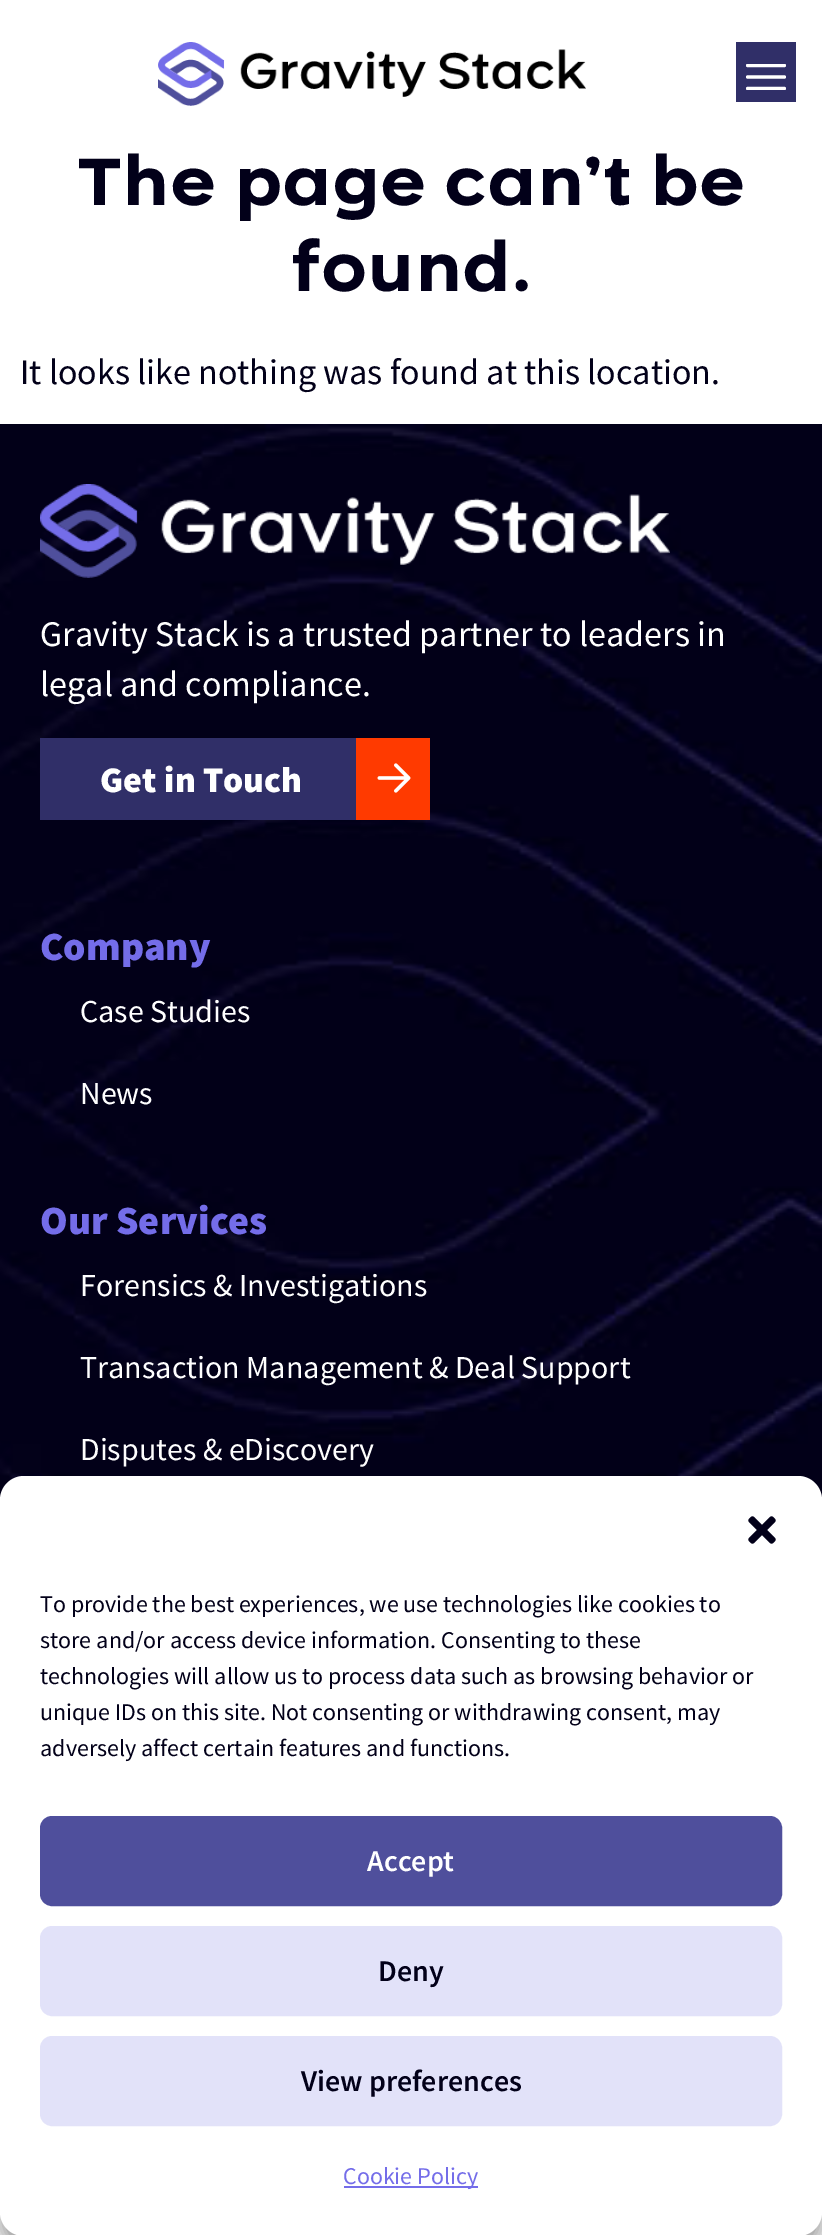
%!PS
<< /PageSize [822 2235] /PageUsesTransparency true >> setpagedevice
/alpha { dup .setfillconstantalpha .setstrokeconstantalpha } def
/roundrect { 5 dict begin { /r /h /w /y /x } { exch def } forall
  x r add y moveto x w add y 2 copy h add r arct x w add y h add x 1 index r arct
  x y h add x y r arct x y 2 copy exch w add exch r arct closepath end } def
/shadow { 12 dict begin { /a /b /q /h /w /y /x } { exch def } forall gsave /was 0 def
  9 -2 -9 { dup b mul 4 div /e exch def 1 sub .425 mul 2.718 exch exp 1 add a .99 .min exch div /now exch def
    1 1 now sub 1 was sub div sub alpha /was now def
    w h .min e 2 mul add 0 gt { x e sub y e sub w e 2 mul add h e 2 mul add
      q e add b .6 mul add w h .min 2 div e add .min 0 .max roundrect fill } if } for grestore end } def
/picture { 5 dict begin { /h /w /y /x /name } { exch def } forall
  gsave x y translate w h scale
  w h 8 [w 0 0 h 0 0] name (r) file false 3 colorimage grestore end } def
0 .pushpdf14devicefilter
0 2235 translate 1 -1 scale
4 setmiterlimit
1 setgray
0 0 822 2235 rectfill
(img1.rgb) 158 42 428 64 picture
0.188 0.184 0.408 setrgbcolor
736 42 60 60 rectfill
gsave
746 64 40 26 rectclip
1 setgray
3.2 setlinewidth
1 setlinecap
1 setlinejoin
newpath 747.5 88.5 moveto 784.5 88.5 lineto 747.5 77 moveto 784.5 77 lineto 747.5 65.5 moveto 784.5 65.5 lineto stroke
grestore
/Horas-ExtraBold [72 0 0 -72 0 0] selectfont
0.008 0 0.098 setrgbcolor
77 205 moveto (The page can’t be) show
291 291 moveto (found.) show
/SourceSansPro-Regular [36 0 0 -36 0 0] selectfont
20 384 moveto (It looks like nothing was found at this location.) show
(img2.rgb) 0 424 822 1076 picture
(img3.rgb) 40 484 630 94 picture
1 setgray
40 646 moveto (Gravity Stack is a trusted partner to leaders in) show
40 696 moveto (legal and compliance.) show
0.188 0.184 0.408 setrgbcolor
40 738 316 82 rectfill
/SourceSansPro-Black [36 0 0 -36 0 0] selectfont
1 setgray
100 792 moveto (Get in Touch) show
1 0.227 0 setrgbcolor
356 738 74 82 rectfill
(img4.rgb) 377 763 34 30 picture
/SourceSansPro-Black [40 0 0 -40 0 0] selectfont
0.455 0.427 0.914 setrgbcolor
40 960 moveto (Company) show
/SourceSansPro-Regular [32 0 0 -32 0 0] selectfont
1 setgray
80 1022 moveto (Case Studies) show
80 1104 moveto (News) show
/SourceSansPro-Black [40 0 0 -40 0 0] selectfont
0.455 0.427 0.914 setrgbcolor
40 1234 moveto (Our Services) show
/SourceSansPro-Regular [32 0 0 -32 0 0] selectfont
1 setgray
80 1296 moveto (Forensics & Investigations) show
80 1378 moveto (Transaction Management & Deal Support) show
80 1460 moveto (Disputes & eDiscovery) show
0 setgray
0 1488 822 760 24 6 0.23 shadow
0 1496 822 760 24 20 0.19 shadow
0.502 setgray
682 2088 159 120 4 5 1 shadow
1 setgray
0 1476 822 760 24 roundrect fill
(img5.rgb) 748 1516 28 28 picture
/SourceSansPro-Regular [24 0 0 -24 0 0] selectfont
0.008 0 0.098 setrgbcolor
40 1612 moveto (To provide the best experiences, we use technologies like cookies to) show
40 1648 moveto (store and/or access device information. Consenting to these) show
40 1684 moveto (technologies will allow us to process data such as browsing behavior or) show
40 1720 moveto (unique IDs on this site. Not consenting or withdrawing consent, may) show
40 1756 moveto (adversely affect certain features and functions.) show
0.31 0.31 0.612 setrgbcolor
41 1817 740 88 11 roundrect gsave fill grestore
2 setlinewidth
stroke
/SourceSansPro-SemiBold [30 0 0 -30 0 0] selectfont
1 setgray
367 1871 moveto (Accept) show
0.886 0.886 0.976 setrgbcolor
41 1927 740 88 11 roundrect gsave fill grestore
stroke
0.008 0 0.098 setrgbcolor
378 1981 moveto (Deny) show
0.886 0.886 0.976 setrgbcolor
41 2037 740 88 11 roundrect gsave fill grestore
stroke
0.008 0 0.098 setrgbcolor
301 2091 moveto (View preferences) show
0.455 0.427 0.914 setrgbcolor
344 2186 134 2 rectfill
/SourceSansPro-Regular [24 0 0 -24 0 0] selectfont
343 2184 moveto (Cookie Policy) show
.poppdf14devicefilter showpage
